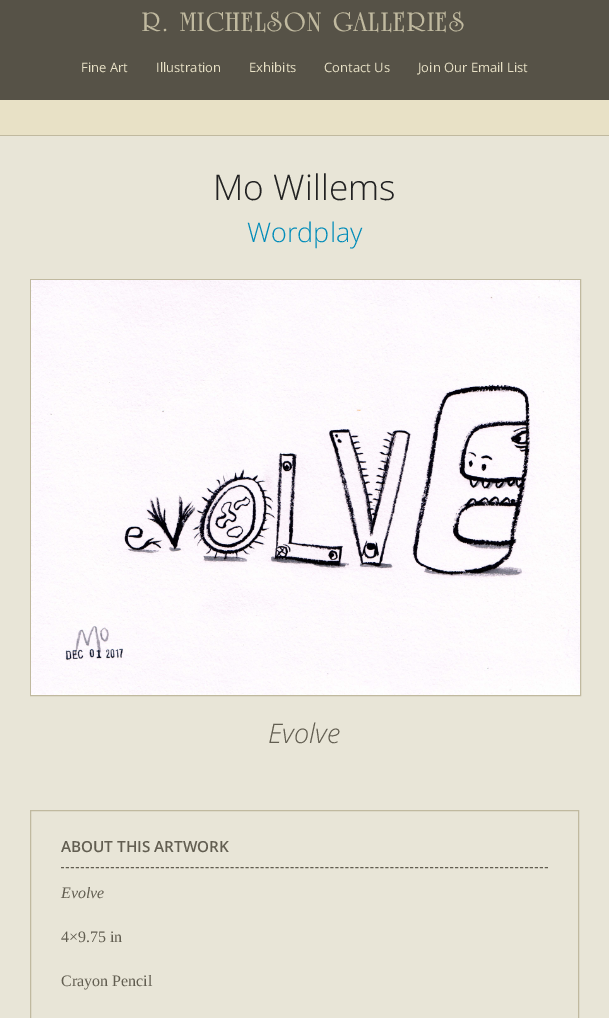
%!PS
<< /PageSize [609 1018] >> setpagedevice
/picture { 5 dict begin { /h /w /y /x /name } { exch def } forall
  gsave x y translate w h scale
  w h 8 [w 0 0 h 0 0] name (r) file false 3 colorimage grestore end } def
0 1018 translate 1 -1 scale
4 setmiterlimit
0.91 0.882 0.776 setrgbcolor
0 0 609 1018 rectfill
0.337 0.322 0.278 setrgbcolor
0 0 609 100 rectfill
/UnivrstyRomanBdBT-Bold [28.75 0 0 -28.75 0 0] selectfont
0.753 0.725 0.624 setrgbcolor
142 31 moveto 1.4 0 (R. MICHELSON GALLERIES) ashow
/OpenSans-Regular [13 0 0 -13 0 0] selectfont
0.91 0.882 0.776 setrgbcolor
81 72 moveto (Fine Art) show
156 72 moveto (Illustration) show
249 72 moveto (Exhibits) show
324 72 moveto (Contact Us) show
418 72 moveto (Join Our Email List) show
0.91 0.898 0.843 setrgbcolor
0 136 609 882 rectfill
0.753 0.725 0.624 setrgbcolor
0 135 609 1 rectfill
/OpenSans-Light [35.25 0 0 -35.25 0 0] selectfont
0.133 setgray
213 200 moveto (Mo Willems) show
/OpenSans-Light [27 0 0 -27 0 0] selectfont
0 0.549 0.729 setrgbcolor
247 242 moveto (Wordplay) show
0.753 0.725 0.624 setrgbcolor
30.5 279.5 550 416 rectstroke
(img1.rgb) 31 280 549 415 picture
/OpenSans-LightItalic [27 0 0 -27 0 0] selectfont
0.384 0.369 0.318 setrgbcolor
268 743 moveto (Evolve) show
0.753 0.725 0.624 setrgbcolor
30.5 810.5 548 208 rectstroke
0.384 0.369 0.318 setrgbcolor
[3 1.99] 0 setdash
newpath 61 867.5 moveto 548 867.5 lineto stroke
/OpenSans-SemiBold [15.25 0 0 -15.25 0 0] selectfont
61 852 moveto (ABOUT THIS ARTWORK) show
/LiberationSerif-Italic [16 0 0 -16 0 0] selectfont
61 898 moveto (Evolve) show
/LiberationSerif-Regular [16 0 0 -16 0 0] selectfont
61 942 moveto (4×9.75 in) show
61 986 moveto (Crayon Pencil) show
showpage
